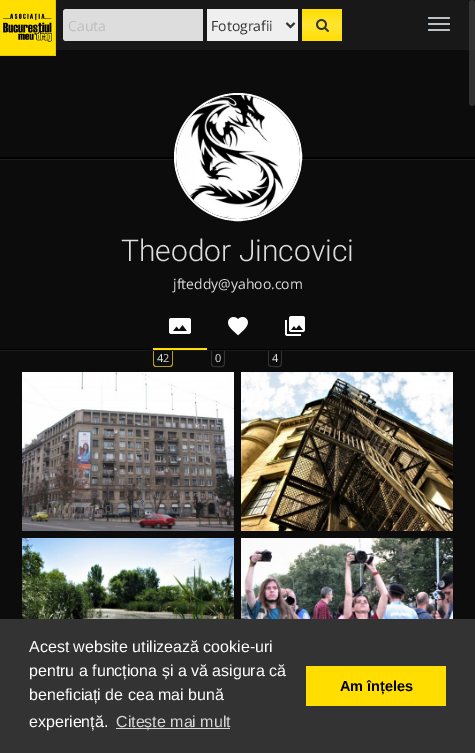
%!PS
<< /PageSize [475 753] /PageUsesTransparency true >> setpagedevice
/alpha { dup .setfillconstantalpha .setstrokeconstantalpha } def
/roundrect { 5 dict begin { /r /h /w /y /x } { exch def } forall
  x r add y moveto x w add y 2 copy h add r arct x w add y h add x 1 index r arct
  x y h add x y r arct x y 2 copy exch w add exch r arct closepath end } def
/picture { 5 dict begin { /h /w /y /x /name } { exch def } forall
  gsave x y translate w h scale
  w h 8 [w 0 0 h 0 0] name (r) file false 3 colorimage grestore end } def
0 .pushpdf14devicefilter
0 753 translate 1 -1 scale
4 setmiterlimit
0.047 setgray
0 0 475 753 rectfill
0.094 setgray
56 0 419 50 rectfill
1 0.871 0 setrgbcolor
0 0 55 55 rectfill
(img1.rgb) 2 13 51 29 picture
0.902 0.784 0 setrgbcolor
55 0 1 56 rectfill
0 55 56 1 rectfill
0.867 setgray
newpath 66 9 moveto 203 9 lineto 203 41 lineto 66 41 lineto 64.5 41 63 39.5 63 38 curveto 63 12 lineto 63 10.5 64.5 9 66 9 curveto closepath fill
/OpenSans-Regular [14 0 0 -14 0 0] selectfont
0.741 setgray
68 31 moveto (Cauta) show
0.937 setgray
207 9 91 32 rectfill
0.2 setgray
2 setlinewidth
newpath 286.5 23 moveto 290.5 27 lineto 294.5 23 lineto stroke
211 31 moveto (Fotografii) show
gsave newpath 302 9 moveto 339 9 lineto 340.5 9 342 10.5 342 12 curveto 342 38 lineto 342 39.5 340.5 41 339 41 curveto 302 41 lineto closepath clip newpath
<< /ShadingType 2 /ColorSpace /DeviceRGB /Coords [322 9 322 41] /Extend [true true] /Function << /FunctionType 3 /Domain [0 1] /Functions [<< /FunctionType 2 /Domain [0 1] /C0 [1 0.871 0] /C1 [1 0.898 0.2] /N 1 >> << /FunctionType 2 /Domain [0 1] /C0 [1 0.898 0.2] /C1 [1 0.871 0] /N 1 >>] /Bounds [0.5] /Encode [0 1 0 1] >> >> shfill grestore
(img2.rgb) 316 19 13 13 picture
0.725 0.757 0.78 setrgbcolor
428 17 22 2 1 roundrect fill
428 23 22 2 1 roundrect fill
428 29 22 2 1 roundrect fill
0.66 alpha
0.259 setgray
469 0 6 106 3 roundrect fill
1 alpha
0 setgray
0 157 475 2 rectfill
0.11 setgray
0 159 475 1 rectfill
1 setgray
newpath 238 157 63 0 360 arc closepath stroke
(img3.rgb) 176 95 124 124 picture
/Roboto-Light [30 0 0 -30 0 0] selectfont
0.867 setgray
121 261 moveto (Theodor Jincovici) show
/OpenSans-Regular [14 0 0 -14 0 0] selectfont
173 289 moveto (jfteddy@yahoo.com) show
0 setgray
0 349 475 1 rectfill
1 0.871 0 setrgbcolor
153 348 54 2 rectfill
(img4.rgb) 169 318 22 16 picture
0.722 0.627 0 setrgbcolor
newpath 153 350 moveto 173 350 lineto 173 364 lineto 173 365.5 171.5 367 170 367 curveto 156 367 lineto 154.5 367 153 365.5 153 364 curveto closepath 154 350 moveto 172 350 lineto 172 364 lineto 172 365 171 366 170 366 curveto 156 366 lineto 155 366 154 365 154 364 curveto closepath eofill
/OpenSans-Regular [11 0 0 -11 0 0] selectfont
0.867 setgray
157 362 moveto (42) show
(img5.rgb) 228 317 20 19 picture
0.2 setgray
newpath 211 350 moveto 225 350 lineto 225 361.5 lineto 225 368.5 222.5 367 216.5 367 curveto 214.5 367 211 367 211 364 curveto closepath 212 350 moveto 224 350 lineto 224 361.5 lineto 224 367.5 222 366 216.5 366 curveto 215 366 212 366.5 212 364 curveto closepath eofill
0.867 setgray
215 362 moveto (0) show
(img6.rgb) 285 316 20 20 picture
0.2 setgray
newpath 268 350 moveto 282 350 lineto 282 361.5 lineto 282 368.5 279.5 367 273.5 367 curveto 271.5 367 268 367 268 364 curveto closepath 269 350 moveto 281 350 lineto 281 361.5 lineto 281 367.5 279 366 273.5 366 curveto 272 366 269 366.5 269 364 curveto closepath eofill
0.867 setgray
272 362 moveto (4) show
0.11 setgray
0 350 475 1 rectfill
(img7.rgb) 22 372 212 159 picture
/LiberationSans-Regular [13 0 0 -13 0 0] selectfont
0.369 0.357 0.361 setrgbcolor
105 512 moveto (d) show
130 512 moveto (i) show
(img8.rgb) 241 372 212 159 picture
(img9.rgb) 22 538 212 81 picture
(img10.rgb) 241 538 212 81 picture
0.2 setgray
0 619 475 134 rectfill
/LiberationSans-Regular [16 0 0 -16 0 0] selectfont
1 setgray
29 652 moveto (Acest website utilizează cookie-uri) show
29 676 moveto (pentru a funcționa și a vă asigura că) show
29 700 moveto (beneficiați de cea mai bună) show
29 727 moveto (experiență.) show
0.839 setgray
116 728 114 1 rectfill
116 727 moveto (Citește mai mult) show
1 0.871 0 setrgbcolor
306 666 140 40 rectfill
/LiberationSans-Bold [14.5 0 0 -14.5 0 0] selectfont
0 setgray
340 691 moveto (Am înțeles) show
.poppdf14devicefilter showpage
